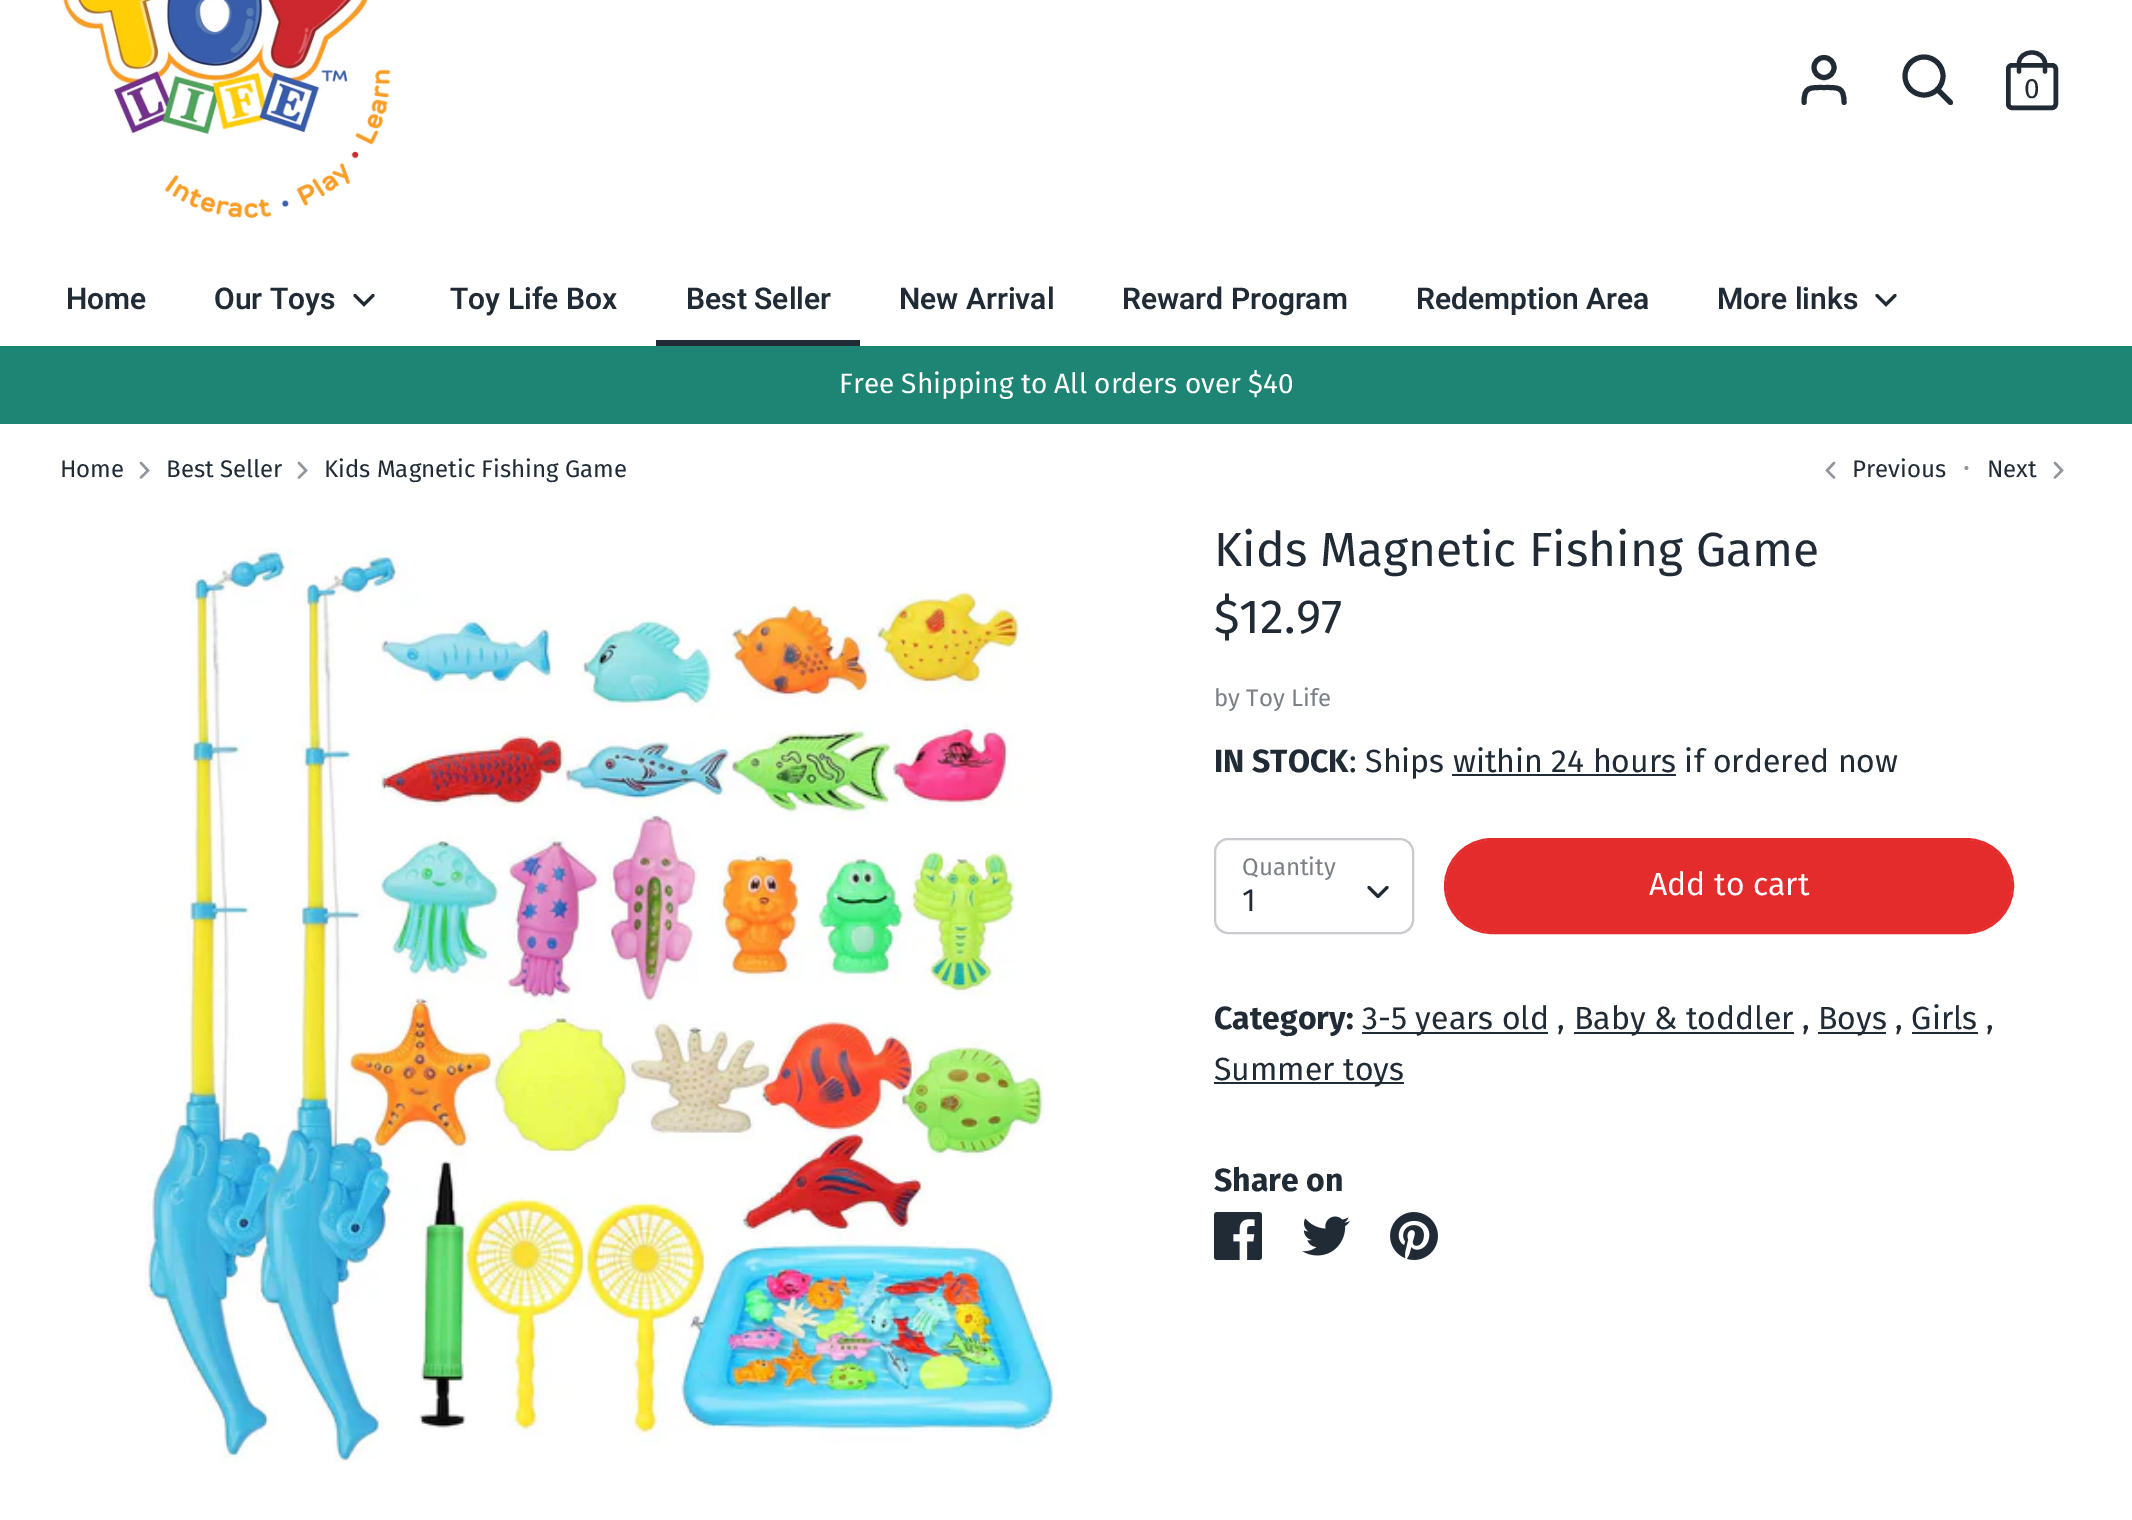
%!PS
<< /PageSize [2132 1520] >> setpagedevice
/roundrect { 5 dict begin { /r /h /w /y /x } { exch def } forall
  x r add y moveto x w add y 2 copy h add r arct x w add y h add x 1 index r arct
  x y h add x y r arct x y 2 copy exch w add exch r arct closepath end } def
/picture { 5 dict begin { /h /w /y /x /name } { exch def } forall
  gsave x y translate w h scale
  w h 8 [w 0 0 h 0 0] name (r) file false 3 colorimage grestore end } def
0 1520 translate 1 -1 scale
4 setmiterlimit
1 setgray
0 0 2132 1520 rectfill
(img1.rgb) 61 0 329 218 picture
0.129 0.169 0.212 setrgbcolor
5 setlinewidth
1 setlinecap
newpath 1844 102.5 moveto 1844 86.5 1838 87.5 1824 87.5 curveto 1810 87.5 1804 86.5 1804 102.5 curveto stroke
0 setlinecap
newpath 1824 67.5 10 0 360 arc closepath stroke
newpath 1924 76 19 0 360 arc closepath stroke
1 setlinecap
newpath 1950.5 102.5 moveto 1937.5 89.5 lineto stroke
4.5 setlinewidth
0 setlinecap
2008.25 65.25 47.5 42.5 3.75 roundrect stroke
4.3 setlinewidth
1 setlinecap
newpath 2019 71.5 moveto 2019 63 lineto 2019 57 2024.5 52.5 2032 52.5 curveto 2039 52.5 2044.5 57 2045 63 curveto 2045 71.5 lineto stroke
/FiraSans-Regular [28 0 0 -28 0 0] selectfont
2024 98 moveto (0) show
/Roboto-SemiBold [30 0 0 -30 0 0] selectfont
66 309 moveto (Home) show
214 309 moveto (Our Toys) show
3 setlinewidth
newpath 355 295.5 moveto 364 304.5 lineto 373 295.5 lineto stroke
450 309 moveto (Toy Life Box) show
686 309 moveto (Best Seller) show
656 340 204 6 rectfill
899 309 moveto (New Arrival) show
1122 309 moveto (Reward Program) show
1416 309 moveto (Redemption Area) show
1717 309 moveto (More links) show
newpath 1877 295.5 moveto 1886 304.5 lineto 1895 295.5 lineto stroke
0.118 0.522 0.455 setrgbcolor
0 346 2132 78 rectfill
/FiraSans-Regular [28 0 0 -28 0 0] selectfont
1 setgray
839 393 moveto (Free Shipping to All orders over $40) show
/FiraSans-Regular [24 0 0 -24 0 0] selectfont
0.129 0.169 0.212 setrgbcolor
60 477 moveto (Home) show
0.565 0.584 0.608 setrgbcolor
2.4 setlinewidth
newpath 141 477.5 moveto 148 470.5 lineto 141 463 lineto stroke
0.129 0.169 0.212 setrgbcolor
166 477 moveto (Best Seller) show
0.565 0.584 0.608 setrgbcolor
newpath 299 477.5 moveto 306 470.5 lineto 299 463 lineto stroke
0.129 0.169 0.212 setrgbcolor
324 477 moveto (Kids Magnetic Fishing Game) show
0.565 0.584 0.608 setrgbcolor
newpath 1834 477.5 moveto 1827 470.5 lineto 1834 463 lineto stroke
0.129 0.169 0.212 setrgbcolor
1852 477 moveto (Previous) show
/FiraSans-Regular [29 0 0 -29 0 0] selectfont
0.565 0.584 0.608 setrgbcolor
1963 477 moveto (·) show
/FiraSans-Regular [24 0 0 -24 0 0] selectfont
0.129 0.169 0.212 setrgbcolor
1987 477 moveto (Next) show
0.565 0.584 0.608 setrgbcolor
newpath 2055 477.5 moveto 2062 470.5 lineto 2055 463 lineto stroke
(img2.rgb) 145 547 913 916 picture
/FiraSans-Regular [48 0 0 -48 0 0] selectfont
0.129 0.169 0.212 setrgbcolor
1214 566 moveto (Kids Magnetic Fishing Game) show
1214 633 moveto ($12.97) show
/FiraSans-Regular [24 0 0 -24 0 0] selectfont
0.478 0.502 0.525 setrgbcolor
1214 706 moveto (by Toy Life) show
/FiraSans-Bold [32 0 0 -32 0 0] selectfont
0.129 0.169 0.212 setrgbcolor
1214 772 moveto (IN STOCK) show
/FiraSans-Regular [32 0 0 -32 0 0] selectfont
1349 772 moveto (: Ships within 24 hours if ordered now) show
1452 774 224 2 rectfill
0.784 0.792 0.804 setrgbcolor
2 setlinewidth
0 setlinecap
1215 839 198 94 13 roundrect stroke
/FiraSans-Regular [24 0 0 -24 0 0] selectfont
0.478 0.502 0.525 setrgbcolor
1242 875 moveto (Quantity) show
/FiraSans-Regular [32 0 0 -32 0 0] selectfont
0.129 0.169 0.212 setrgbcolor
1242 911 moveto (1) show
3 setlinewidth
1 setlinecap
1 setlinejoin
newpath 1369 887.5 moveto 1378 896.5 lineto 1387 887.5 lineto stroke
0.89 0.173 0.169 setrgbcolor
2 setlinewidth
0 setlinecap
0 setlinejoin
1445 839 568 94 47 roundrect stroke
1446 840 566 92 46 roundrect fill
1 setgray
1649 895 moveto (Add to cart) show
/FiraSans-Bold [32 0 0 -32 0 0] selectfont
0.129 0.169 0.212 setrgbcolor
1214 1029 moveto (Category:) show
1362 1032 186 2 rectfill
/FiraSans-Regular [32 0 0 -32 0 0] selectfont
1362 1029 moveto (3-5 years old ,) show
1574 1032 220 2 rectfill
1574 1029 moveto (Baby & toddler ,) show
1818 1032 68 2 rectfill
1818 1029 moveto (Boys , Girls ,) show
1912 1032 66 2 rectfill
1214 1082 190 2 rectfill
1214 1080 moveto (Summer toys) show
/FiraSans-Bold [32 0 0 -32 0 0] selectfont
1214 1191 moveto (Share on) show
(img3.rgb) 1214 1212 48 48 picture
(img4.rgb) 1302 1216 48 40 picture
(img5.rgb) 1390 1212 48 48 picture
showpage
